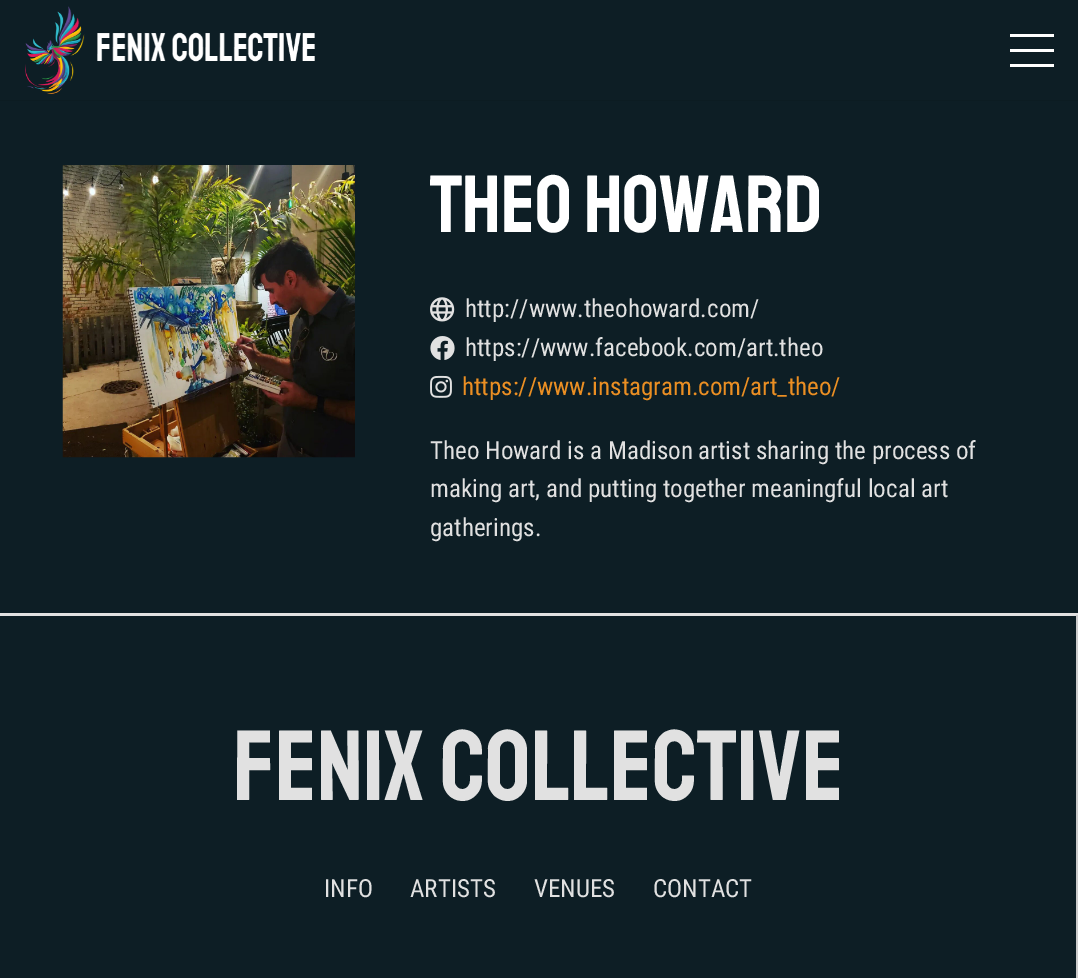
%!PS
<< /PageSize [1078 978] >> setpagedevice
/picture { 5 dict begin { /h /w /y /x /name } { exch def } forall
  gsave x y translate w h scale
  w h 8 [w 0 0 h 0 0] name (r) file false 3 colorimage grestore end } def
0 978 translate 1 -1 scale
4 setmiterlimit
0.051 0.118 0.145 setrgbcolor
0 0 1078 978 rectfill
0.047 0.11 0.133 setrgbcolor
newpath 0 100 moveto 0 101 lineto 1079 101 lineto 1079 1 lineto 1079 100 lineto closepath fill
(img1.rgb) 25 6 290 88 picture
1 setgray
1010 49 44 3 rectfill
1010 34 44 3 rectfill
1010 64 44 3 rectfill
(img2.rgb) 62 165 293 293 picture
/Staatliches-Regular [81 0 0 -81 0 0] selectfont
430 232 moveto (Theo Howard) show
(img3.rgb) 430 297 25 25 picture
/RobotoCondensed-Regular [25 0 0 -25 0 0] selectfont
0.882 setgray
465 317 moveto (http://www.theohoward.com/) show
(img4.rgb) 430 336 25 24 picture
465 356 moveto (https://www.facebook.com/art.theo) show
(img5.rgb) 430 375 22 23 picture
0.922 0.561 0.137 setrgbcolor
462 395 moveto (https://www.instagram.com/art_theo/) show
0.882 setgray
430 459 moveto (Theo Howard is a Madison artist sharing the process of) show
430 497 moveto (making art, and putting together meaningful local art) show
430 536 moveto (gatherings.) show
0 613 1078 3 rectfill
0.8 setgray
1076 615 2 363 rectfill
/Staatliches-Regular [100 0 0 -100 0 0] selectfont
0.882 setgray
233 800 moveto (FENIX COLLECTIVE) show
/RobotoCondensed-Regular [25 0 0 -25 0 0] selectfont
324 897 moveto (INFO) show
410 897 moveto (ARTISTS) show
534 897 moveto (VENUES) show
653 897 moveto (CONTACT) show
showpage
